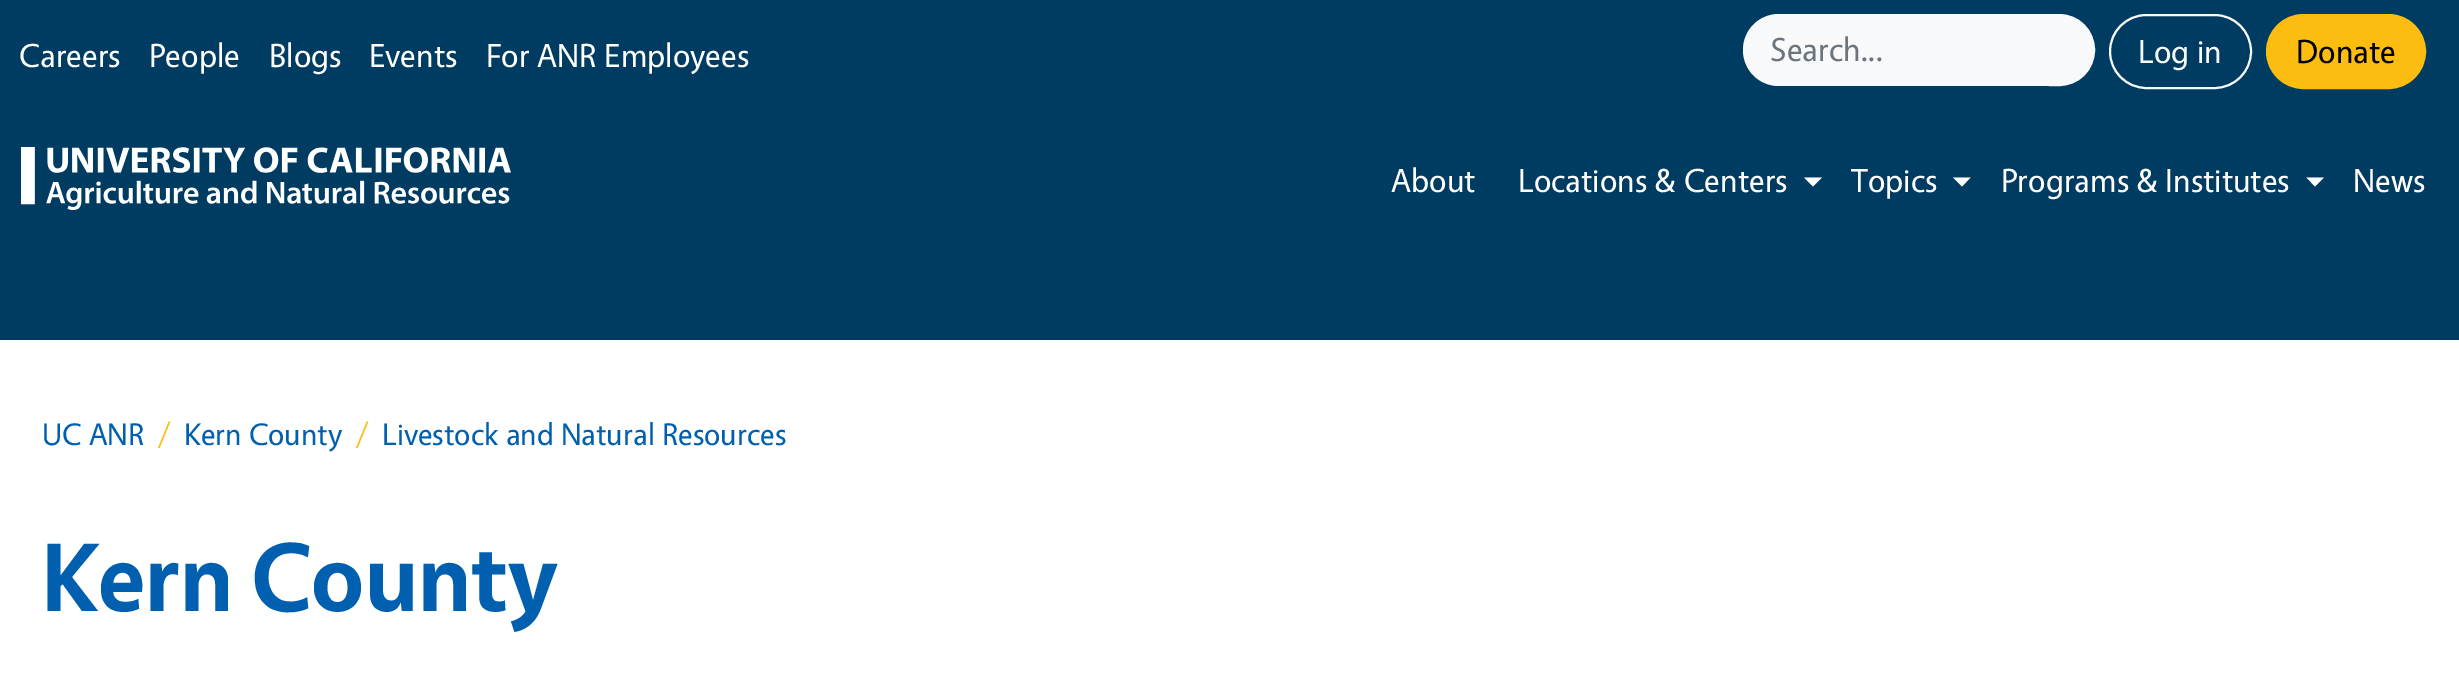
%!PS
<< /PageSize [2459 681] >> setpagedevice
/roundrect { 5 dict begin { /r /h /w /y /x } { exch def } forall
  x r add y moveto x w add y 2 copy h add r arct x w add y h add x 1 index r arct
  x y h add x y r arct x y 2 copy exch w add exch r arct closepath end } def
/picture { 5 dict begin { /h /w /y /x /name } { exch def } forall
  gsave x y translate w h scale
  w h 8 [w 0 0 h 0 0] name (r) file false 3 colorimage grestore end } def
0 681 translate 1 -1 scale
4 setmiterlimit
0 0.235 0.38 setrgbcolor
0 0 2459 681 rectfill
/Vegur-Regular [33.5 0 0 -33.5 0 0] selectfont
1 setgray
19 67 moveto (Careers) show
149 67 moveto (People) show
269 67 moveto (Blogs) show
369 67 moveto (Events) show
486 67 moveto (For ANR Employees) show
0.973 0.976 0.98 setrgbcolor
newpath 1779 14 moveto 2051 14 lineto 2051 86 lineto 1779 86 lineto 1759 86 1743 70 1743 50 curveto 1743 30 1759 14 1779 14 curveto closepath fill
0.424 0.459 0.49 setrgbcolor
1770 61 moveto (Search...) show
0.973 0.976 0.98 setrgbcolor
newpath 2050 15 moveto 2059 15 lineto 2078.5 15 2094 30.5 2094 50 curveto 2094 69.5 2078.5 85 2059 85 curveto 2050 85 lineto closepath gsave fill grestore
2 setlinewidth
stroke
2110 15 141 73 36.5 roundrect stroke
2138 63 moveto (Log in) show
0.992 0.741 0.063 setrgbcolor
2267 15 158 73 36.5 roundrect gsave fill grestore
stroke
0 setgray
2296 63 moveto (Donate) show
(img1.rgb) 21 147 490 63 picture
1 setgray
1391 192 moveto (About) show
1518 192 moveto (Locations & Centers) show
newpath 1804 177.5 moveto 1822 177.5 lineto 1813 186.5 lineto closepath fill
1851 192 moveto (Topics) show
newpath 1953 177.5 moveto 1970.5 177.5 lineto 1962 186.5 lineto closepath fill
2001 192 moveto (Programs & Institutes) show
newpath 2306.5 177.5 moveto 2324 177.5 lineto 2315 186.5 lineto closepath fill
2353 192 moveto (News) show
0 340 2459 341 rectfill
/Vegur-Regular [31.25 0 0 -31.25 0 0] selectfont
0 0.373 0.682 setrgbcolor
42 445 moveto (UC ANR) show
0.992 0.741 0.063 setrgbcolor
158 445 moveto (/) show
0 0.373 0.682 setrgbcolor
184 445 moveto (Kern County) show
0.992 0.741 0.063 setrgbcolor
356 445 moveto (/) show
0 0.373 0.682 setrgbcolor
382 445 moveto (Livestock and Natural Resources) show
/Vegur-Bold [98 0 0 -98 0 0] selectfont
42 611 moveto (Kern County) show
showpage
